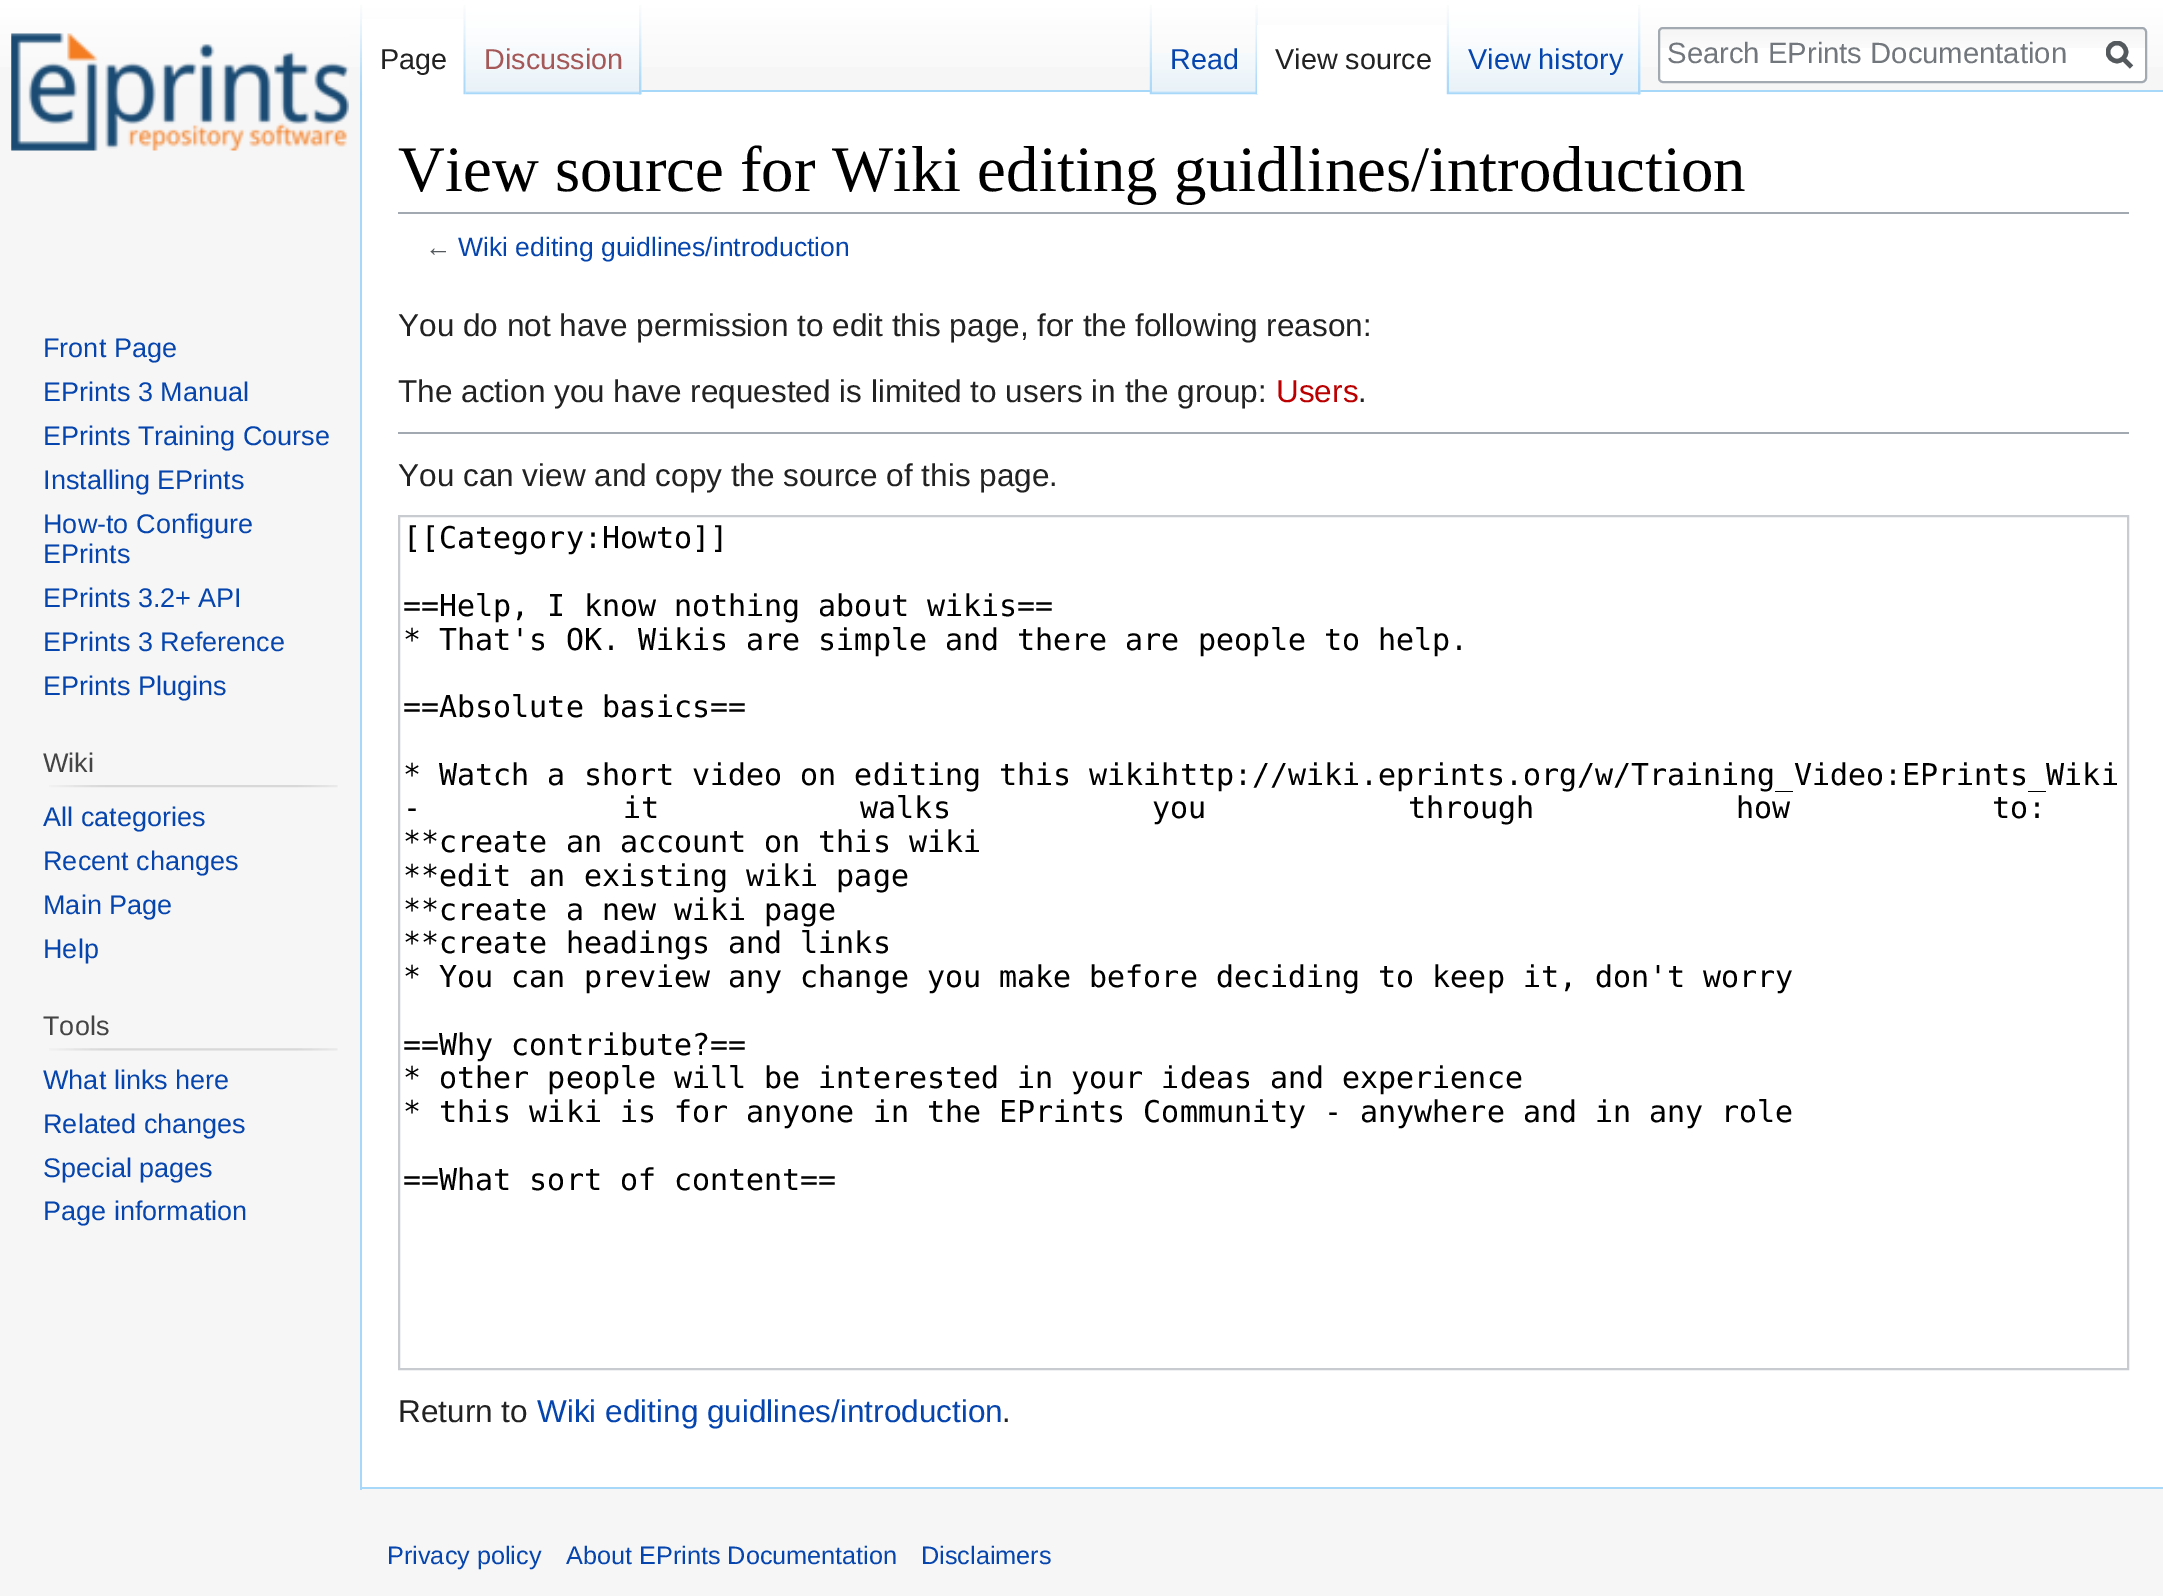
%!PS
<< /PageSize [2163 1596] >> setpagedevice
/roundrect { 5 dict begin { /r /h /w /y /x } { exch def } forall
  x r add y moveto x w add y 2 copy h add r arct x w add y h add x 1 index r arct
  x y h add x y r arct x y 2 copy exch w add exch r arct closepath end } def
/picture { 5 dict begin { /h /w /y /x /name } { exch def } forall
  gsave x y translate w h scale
  w h 8 [w 0 0 h 0 0] name (r) file false 3 colorimage grestore end } def
0 1596 translate 1 -1 scale
4 setmiterlimit
0.965 setgray
0 0 2163 1596 rectfill
gsave newpath 0 0 moveto 2163 0 lineto 2163 67 lineto 0 67 lineto closepath clip newpath
<< /ShadingType 2 /ColorSpace /DeviceRGB /Coords [1082 -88 1082 92] /Extend [true true] /Function << /FunctionType 3 /Domain [0 1] /Functions [<< /FunctionType 2 /Domain [0 1] /C0 [1 1 1] /C1 [1 1 1] /N 1 >> << /FunctionType 2 /Domain [0 1] /C0 [1 1 1] /C1 [0.965 0.965 0.965] /N 1 >>] /Bounds [0.5] /Encode [0 1 0 1] >> >> shfill grestore
1 setgray
362 92 1801 1395 rectfill
0.655 0.843 0.976 setrgbcolor
360 1487 1803 2 rectfill
360 90 2 1400 rectfill
(img1.rgb) 360 5 3 90 picture
641 90 1522 2 rectfill
(img2.rgb) 639 5 3 90 picture
1 setgray
362 19 104 75 rectfill
(img3.rgb) 463 5 3 90 picture
/LiberationSans-Regular [28.75 0 0 -28.75 0 0] selectfont
0.133 setgray
380 69 moveto (Page) show
(img4.rgb) 465 5 177 90 picture
(img5.rgb) 639 5 3 90 picture
0.647 0.345 0.345 setrgbcolor
484 69 moveto (Discussion) show
(img6.rgb) 1149 5 3 90 picture
(img2.rgb) 1638 5 3 90 picture
(img7.rgb) 1152 53 106 42 picture
(img8.rgb) 1255 5 3 90 picture
0.024 0.271 0.678 setrgbcolor
1170 69 moveto (Read) show
1 setgray
1257 25 190 69 rectfill
(img9.rgb) 1446 5 3 90 picture
0.133 setgray
1275 69 moveto (View source) show
(img10.rgb) 1449 5 192 90 picture
(img5.rgb) 1638 5 3 90 picture
0.024 0.271 0.678 setrgbcolor
1468 69 moveto (View history) show
1 setgray
1658 27 489 56 5 roundrect fill
(img11.rgb) 1658 29 487 19 picture
0.635 0.663 0.694 setrgbcolor
2 setlinewidth
1659 28 487 54 4 roundrect stroke
/LiberationSans-Regular [29.25 0 0 -29.25 0 0] selectfont
0.447 0.467 0.49 setrgbcolor
1667 63 moveto (Search EPrints Documentation) show
0.329 0.349 0.365 setrgbcolor
4.5 setlinewidth
newpath 2131.5 67 moveto 2122.5 58 lineto stroke
gsave
2106 41 27 29 rectclip
newpath 2117 52 9 0 360 arc closepath stroke
grestore
(img12.rgb) 11 33 338 118 picture
/LiberationSans-Regular [27 0 0 -27 0 0] selectfont
0.024 0.271 0.678 setrgbcolor
43 357 moveto (Front Page) show
43 401 moveto (EPrints 3 Manual) show
43 445 moveto (EPrints Training Course) show
43 489 moveto (Installing EPrints) show
43 533 moveto (How-to Configure) show
43 563 moveto (EPrints) show
43 607 moveto (EPrints 3.2+ API) show
43 651 moveto (EPrints 3 Reference) show
43 695 moveto (EPrints Plugins) show
0.267 setgray
43 772 moveto (Wiki) show
(img13.rgb) 49 785 289 3 picture
0.024 0.271 0.678 setrgbcolor
43 826 moveto (All categories) show
43 870 moveto (Recent changes) show
43 914 moveto (Main Page) show
43 958 moveto (Help) show
0.267 setgray
43 1035 moveto (Tools) show
(img14.rgb) 49 1048 289 3 picture
0.024 0.271 0.678 setrgbcolor
43 1089 moveto (What links here) show
43 1133 moveto (Related changes) show
43 1177 moveto (Special pages) show
43 1220 moveto (Page information) show
0.635 0.663 0.694 setrgbcolor
398 212 1731 2 rectfill
/LiberationSerif-Regular [64.8 0 0 -64.8 0 0] selectfont
0 setgray
398 191 moveto (View source for Wiki editing guidlines/introduction) show
/LiberationSans-Regular [26.5 0 0 -26.5 0 0] selectfont
0.329 0.349 0.365 setrgbcolor
425 256 moveto (←) show
0.024 0.271 0.678 setrgbcolor
458 256 moveto (Wiki editing guidlines/introduction) show
/LiberationSans-Regular [31.5 0 0 -31.5 0 0] selectfont
0.133 setgray
398 336 moveto (You do not have permission to edit this page, for the following reason:) show
398 402 moveto (The action you have requested is limited to users in the group:) show
0.729 0 0 setrgbcolor
1276 402 moveto (Users) show
0.133 setgray
1358 402 moveto (.) show
0.635 0.663 0.694 setrgbcolor
398 432 1731 2 rectfill
0.133 setgray
398 486 moveto (You can view and copy the source of this page.) show
0.784 0.8 0.82 setrgbcolor
2 setlinewidth
399 516 1729 853 rectstroke
/DejaVuSansMono-Regular [30 0 0 -30 0 0] selectfont
0 setgray
403 548 moveto ([[Category:Howto]]) show
403 616 moveto (==Help, I know nothing about wikis==) show
403 650 moveto (* That's OK. Wikis are simple and there are people to help.) show
403 717 moveto (==Absolute basics==) show
403 785 moveto (* Watch a short video on editing this wikihttp://wiki.eprints.org/w/Training_Video:EPrints_Wiki) show
403 818 moveto 183.5 0 32 (- it walks you through how to:) widthshow
403 852 moveto (**create an account on this wiki) show
403 886 moveto (**edit an existing wiki page) show
403 920 moveto (**create a new wiki page) show
403 953 moveto (**create headings and links) show
403 987 moveto (* You can preview any change you make before deciding to keep it, don't worry) show
403 1055 moveto (==Why contribute?==) show
403 1088 moveto (* other people will be interested in your ideas and experience) show
403 1122 moveto (* this wiki is for anyone in the EPrints Community - anywhere and in any role) show
403 1190 moveto (==What sort of content==) show
/LiberationSans-Regular [31.5 0 0 -31.5 0 0] selectfont
0.133 setgray
398 1422 moveto (Return to) show
0.024 0.271 0.678 setrgbcolor
537 1422 moveto (Wiki editing guidlines/introduction) show
0.133 setgray
1002 1422 moveto (.) show
/LiberationSans-Regular [25.25 0 0 -25.25 0 0] selectfont
0.024 0.271 0.678 setrgbcolor
387 1564 moveto (Privacy policy) show
566 1564 moveto (About EPrints Documentation) show
921 1564 moveto (Disclaimers) show
showpage
